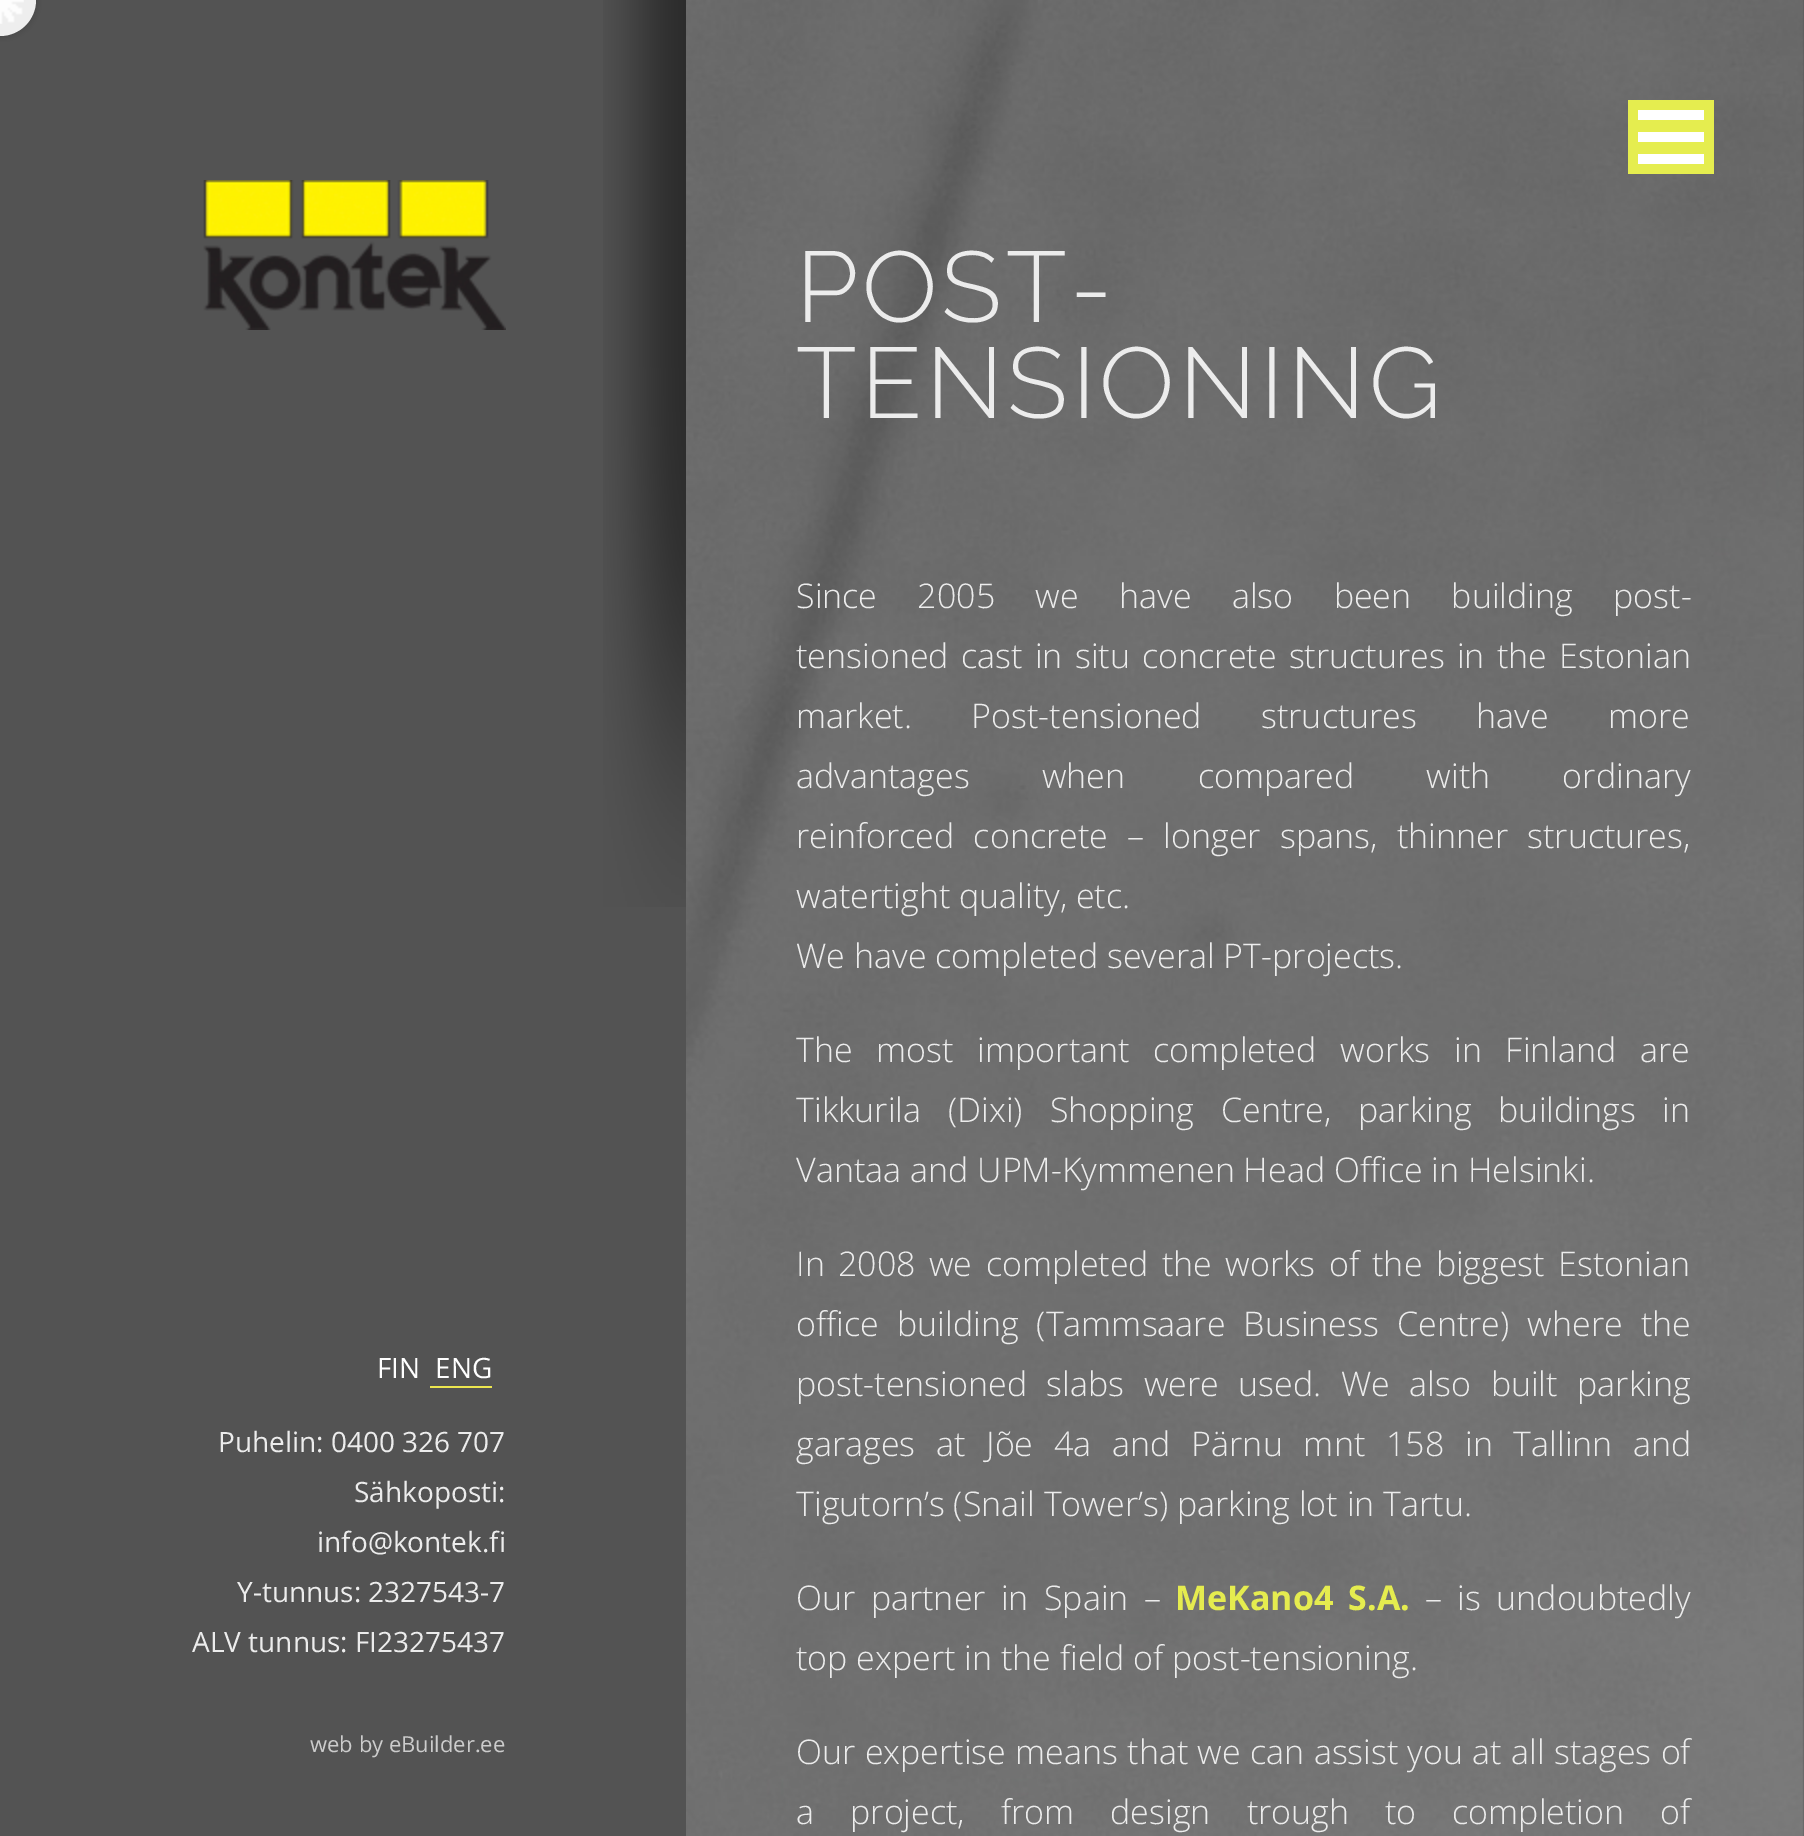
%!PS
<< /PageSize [1804 1836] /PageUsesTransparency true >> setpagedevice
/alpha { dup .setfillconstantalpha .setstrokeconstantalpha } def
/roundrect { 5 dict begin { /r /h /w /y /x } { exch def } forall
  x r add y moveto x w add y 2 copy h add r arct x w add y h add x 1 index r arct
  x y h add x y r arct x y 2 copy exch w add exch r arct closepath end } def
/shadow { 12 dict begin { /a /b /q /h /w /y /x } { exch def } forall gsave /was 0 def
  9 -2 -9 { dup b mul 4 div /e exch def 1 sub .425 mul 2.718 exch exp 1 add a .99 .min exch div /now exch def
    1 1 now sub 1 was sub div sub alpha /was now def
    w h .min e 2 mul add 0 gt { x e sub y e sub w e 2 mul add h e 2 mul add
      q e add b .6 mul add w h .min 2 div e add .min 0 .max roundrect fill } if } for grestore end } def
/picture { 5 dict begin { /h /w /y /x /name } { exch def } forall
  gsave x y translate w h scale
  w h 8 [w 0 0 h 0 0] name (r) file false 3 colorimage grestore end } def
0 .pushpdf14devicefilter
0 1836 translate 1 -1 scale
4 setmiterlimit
0.325 setgray
0 0 1804 1836 rectfill
0.031 setgray
-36 -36 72 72 36 3 0.2 shadow
0.933 setgray
newpath 0 0 36 0 360 arc closepath fill
(img1.rgb) 0 0 24 24 picture
(img2.rgb) 686 0 1118 1836 picture
0.898 0.929 0.31 setrgbcolor
1628 100 86 74 rectfill
1 setgray
1638 110 66 10 rectfill
1638 132 66 10 rectfill
1638 154 66 10 rectfill
(img3.rgb) 603 0 83 907 picture
(img4.rgb) 203 180 303 150 picture
/OpenSans-Regular [28 0 0 -28 0 0] selectfont
377 1378 moveto (FIN) show
0.925 0.902 0.31 setrgbcolor
430 1386 62 2 rectfill
1 setgray
435 1378 moveto (ENG) show
0.925 setgray
218 1452 moveto (Puhelin: 0400 326 707) show
354 1502 moveto (Sähkoposti:) show
317 1552 moveto (info@kontek.fi) show
237 1602 moveto (Y-tunnus: 2327543-7) show
192 1652 moveto (ALV tunnus: FI23275437) show
/OpenSans-Regular [22 0 0 -22 0 0] selectfont
0.8 setgray
310 1752 moveto (web by eBuilder.ee) show
/Raleway-Light [100 0 0 -100 0 0] selectfont
0.925 setgray
796 322 moveto 4 0 (POST-) ashow
796 418 moveto 4 0 (TENSIONING) ashow
/OpenSans-Light [34 0 0 -34 0 0] selectfont
796 608 moveto 31.5 0 32 (Since 2005 we have also been building post-) widthshow
796 668 moveto 3.5 0 32 (tensioned cast in situ concrete structures in the Estonian) widthshow
796 728 moveto 50.5 0 32 (market. Post-tensioned structures have more) widthshow
796 788 moveto 63.5 0 32 (advantages when compared with ordinary) widthshow
796 848 moveto 10.5 0 32 (reinforced concrete – longer spans, thinner structures,) widthshow
796 908 moveto (watertight quality, etc.) show
796 968 moveto (We have completed several PT-projects.) show
796 1062 moveto 15 0 32 (The most important completed works in Finland are) widthshow
796 1122 moveto 18 0 32 (Tikkurila \(Dixi\) Shopping Centre, parking buildings in) widthshow
796 1182 moveto (Vantaa and UPM-Kymmenen Head Office in Helsinki.) show
796 1276 moveto 4.5 0 32 (In 2008 we completed the works of the biggest Estonian) widthshow
796 1336 moveto 9.25 0 32 (office building \(Tammsaare Business Centre\) where the) widthshow
796 1396 moveto 10.75 0 32 (post-tensioned slabs were used. We also built parking) widthshow
796 1456 moveto 12 0 32 (garages at Jõe 4a and Pärnu mnt 158 in Tallinn and) widthshow
796 1516 moveto (Tigutorn’s \(Snail Tower’s\) parking lot in Tartu.) show
796 1610 moveto 6.5 0 32 (Our partner in Spain –) widthshow
/OpenSans-Bold [34 0 0 -34 0 0] selectfont
0.898 0.925 0.31 setrgbcolor
1175 1610 moveto 6.5 0 32 (MeKano4 S.A.) widthshow
/OpenSans-Light [34 0 0 -34 0 0] selectfont
0.925 setgray
1425 1610 moveto 6.5 0 32 (– is undoubtedly) widthshow
796 1670 moveto (top expert in the field of post-tensioning.) show
796 1764 moveto 0.5 0 32 (Our expertise means that we can assist you at all stages of) widthshow
796 1824 moveto 27.25 0 32 (a project, from design trough to completion of) widthshow
.poppdf14devicefilter showpage
